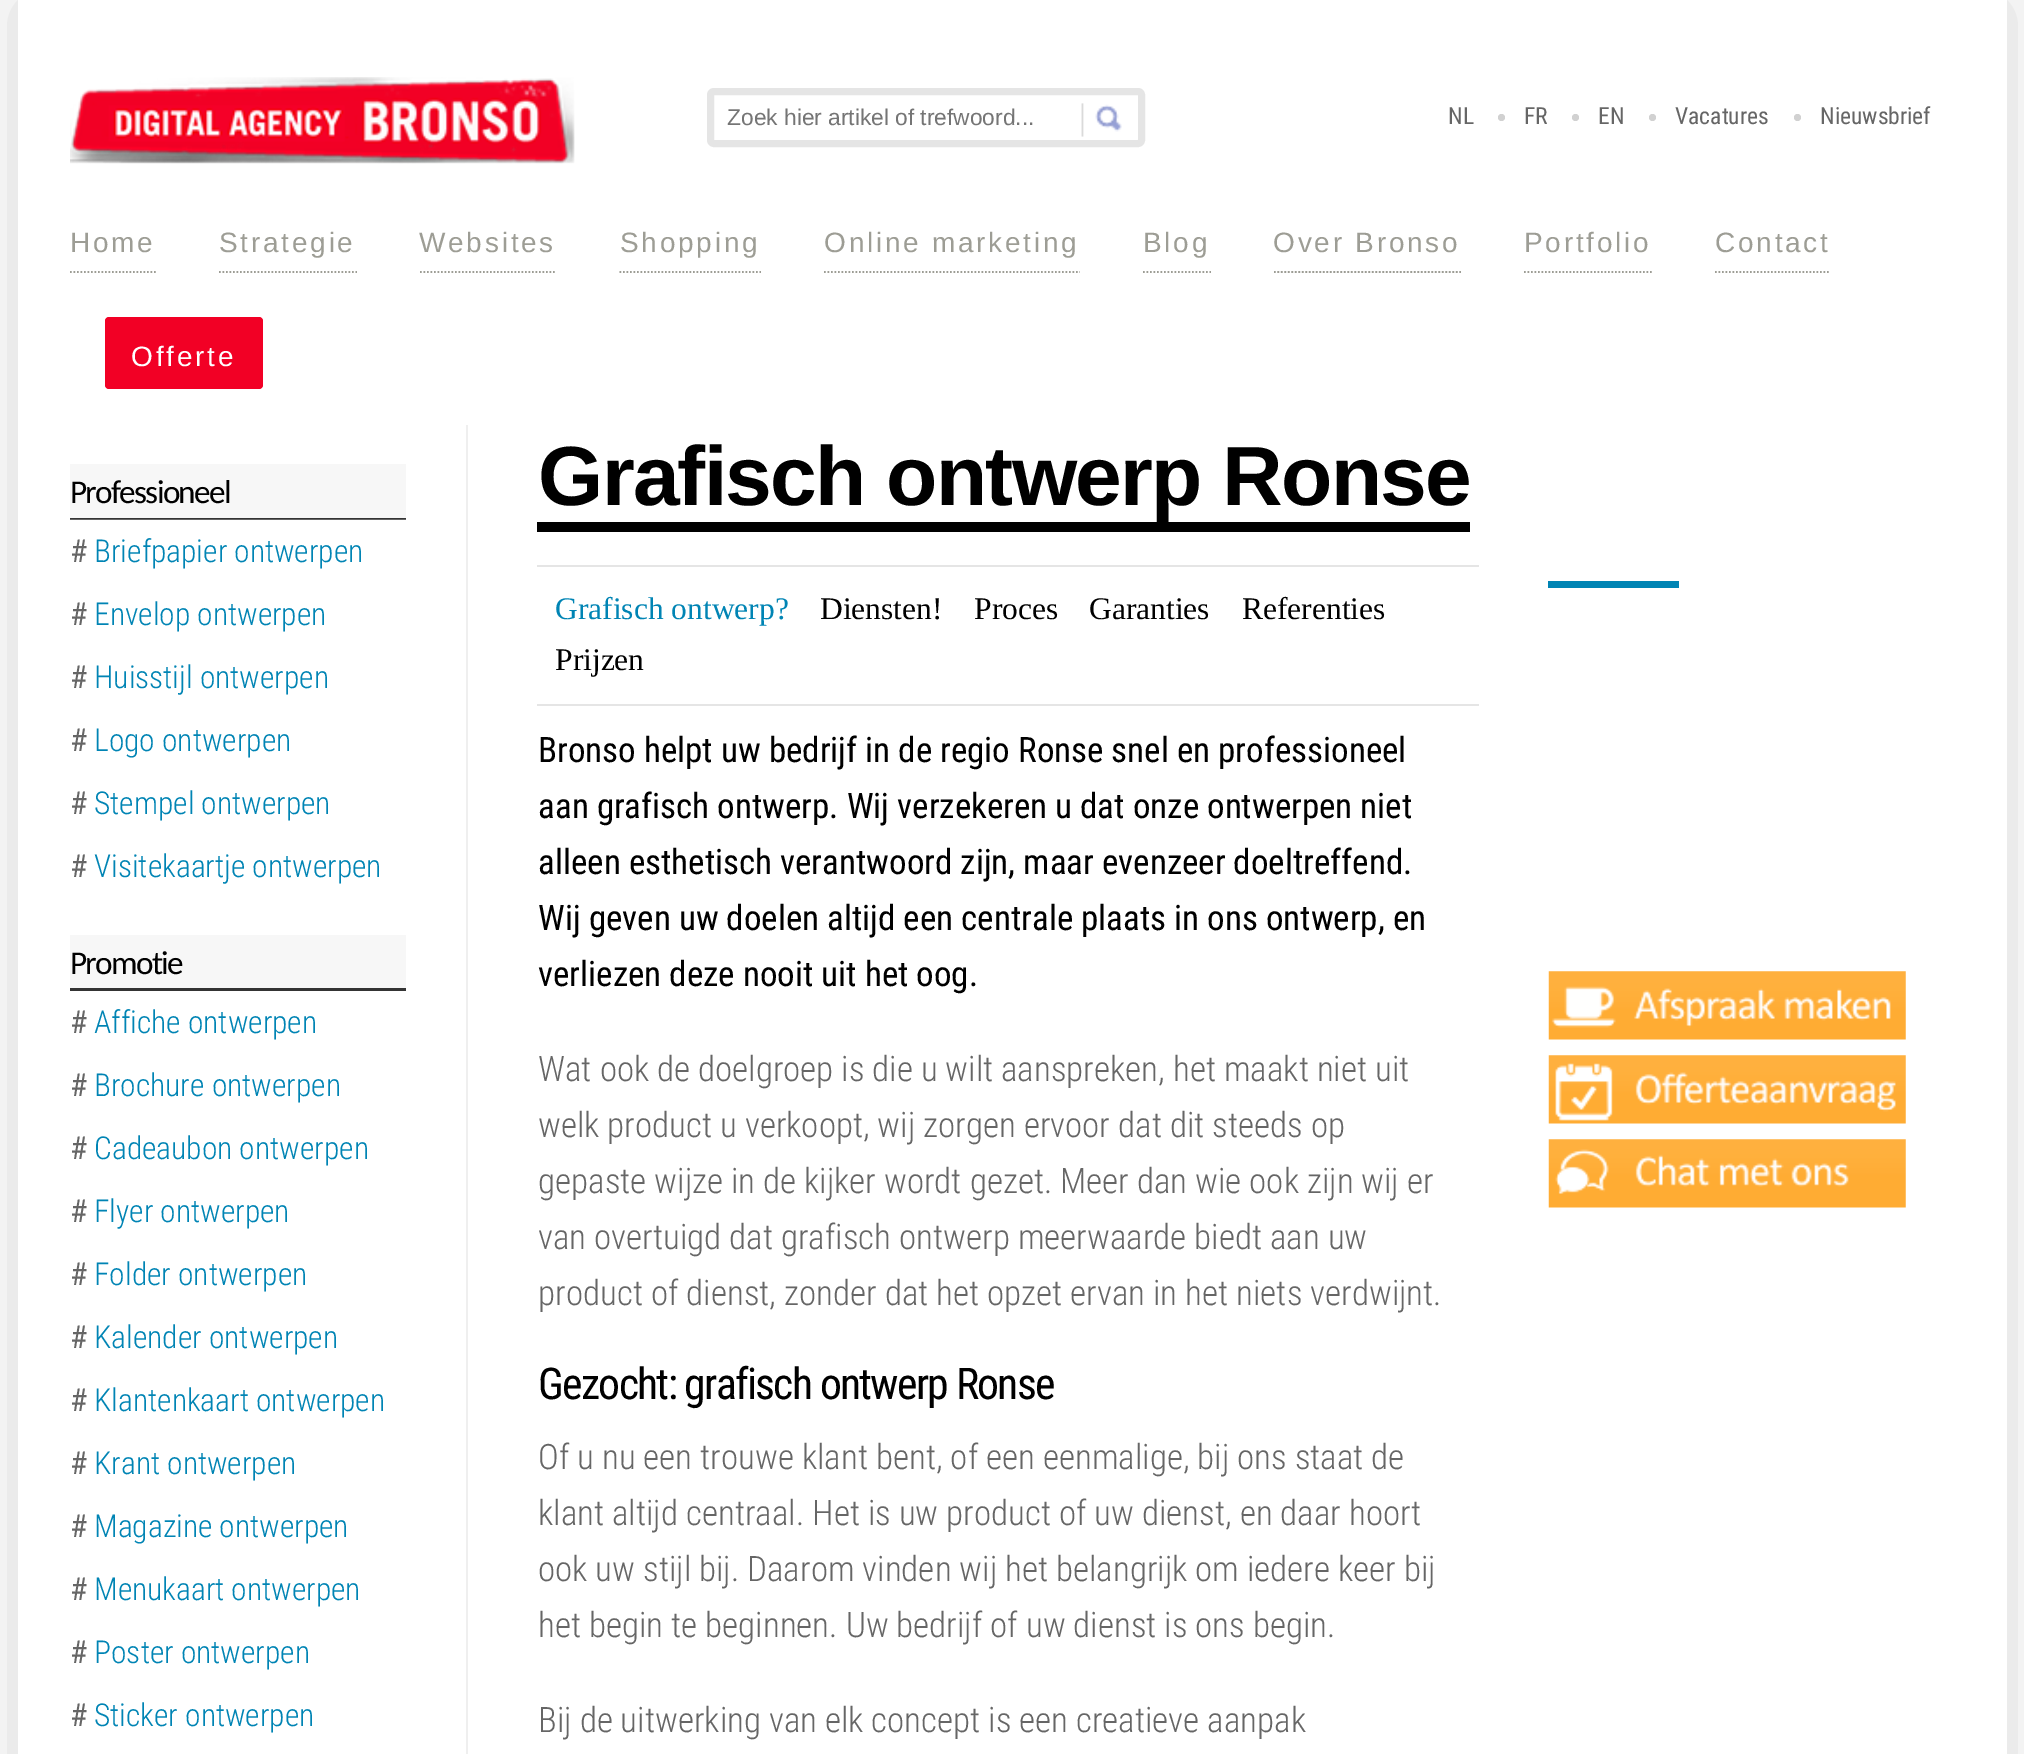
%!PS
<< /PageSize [2024 1754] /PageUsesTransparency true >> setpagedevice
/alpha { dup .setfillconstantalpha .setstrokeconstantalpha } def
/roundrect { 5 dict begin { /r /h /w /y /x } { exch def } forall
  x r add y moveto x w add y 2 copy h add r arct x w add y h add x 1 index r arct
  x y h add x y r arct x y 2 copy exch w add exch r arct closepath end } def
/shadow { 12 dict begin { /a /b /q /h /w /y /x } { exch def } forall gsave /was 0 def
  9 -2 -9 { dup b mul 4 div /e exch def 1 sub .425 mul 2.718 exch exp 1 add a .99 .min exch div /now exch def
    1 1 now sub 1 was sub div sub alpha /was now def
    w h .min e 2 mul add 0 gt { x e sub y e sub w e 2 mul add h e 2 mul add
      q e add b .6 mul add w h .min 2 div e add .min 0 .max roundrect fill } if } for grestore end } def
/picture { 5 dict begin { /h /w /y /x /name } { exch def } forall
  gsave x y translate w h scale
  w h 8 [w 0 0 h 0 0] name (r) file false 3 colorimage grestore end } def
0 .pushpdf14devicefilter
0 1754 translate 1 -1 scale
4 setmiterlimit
1 setgray
0 0 2024 1754 rectfill
gsave
newpath 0 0 moveto 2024 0 lineto 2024 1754 lineto 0 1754 lineto closepath 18 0 moveto 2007 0 lineto 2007 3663 lineto 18 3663 lineto closepath eoclip newpath
0 setgray
18 0 1989 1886 0 44 0.15 shadow
grestore
(img1.rgb) 70 77 505 87 picture
(img2.rgb) 1081 103 41 34 picture
0.898 setgray
7 setlinewidth
710.5 91.5 431 52 3.5 roundrect stroke
/LiberationSans-Regular [22.75 0 0 -22.75 0 0] selectfont
0.459 setgray
727 125 moveto (Zoek hier artikel of trefwoord...) show
/RobotoCondensed-Regular [23.5 0 0 -23.5 0 0] selectfont
0.4 setgray
1448 124 moveto (NL) show
0.82 setgray
newpath 1501.5 117.5 3.5 0 360 arc closepath fill
0.4 setgray
1524 124 moveto (FR) show
0.82 setgray
newpath 1575.5 117.5 3.5 0 360 arc closepath fill
0.4 setgray
1598 124 moveto (EN) show
0.82 setgray
newpath 1652.5 117.5 3.5 0 360 arc closepath fill
0.4 setgray
1675 124 moveto (Vacatures) show
0.82 setgray
newpath 1797.5 117.5 3.5 0 360 arc closepath fill
0.4 setgray
1820 124 moveto (Nieuwsbrief) show
0.616 0.616 0.584 setrgbcolor
1.8 setlinewidth
[1.75 1.75] 0 setdash
newpath 70 272 moveto 156 272 lineto stroke
/LiberationSans-Regular [28 0 0 -28 0 0] selectfont
70 252 moveto 2.75 0 (Home) ashow
newpath 219 272 moveto 357 272 lineto stroke
219 252 moveto 2.75 0 (Strategie) ashow
newpath 420 272 moveto 556.5 272 lineto stroke
419 252 moveto 2.75 0 (Websites) ashow
newpath 619.5 272 moveto 761 272 lineto stroke
620 252 moveto 2.75 0 (Shopping) ashow
newpath 824 272 moveto 1080 272 lineto stroke
824 252 moveto 2.75 0 (Online marketing) ashow
newpath 1143 272 moveto 1211 272 lineto stroke
1143 252 moveto 2.75 0 (Blog) ashow
newpath 1274 272 moveto 1461 272 lineto stroke
1273 252 moveto 2.75 0 (Over Bronso) ashow
newpath 1524 272 moveto 1652 272 lineto stroke
1524 252 moveto 2.75 0 (Portfolio) ashow
newpath 1715 272 moveto 1830.5 272 lineto stroke
1715 252 moveto 2.75 0 (Contact) ashow
0.949 0 0.145 setrgbcolor
105 317 158 72 4 roundrect fill
1 setgray
131 366 moveto 2.75 0 (Offerte) ashow
0.969 setgray
70 464 336 56 rectfill
(img3.rgb) 70 518 336 2 picture
/Carlito-Regular [33.25 0 0 -33.25 0 0] selectfont
0 setgray
70 503 moveto -1.75 0 (Professioneel) ashow
/RobotoCondensed-Regular [31.5 0 0 -31.5 0 0] selectfont
0.4 setgray
70 562 moveto (#) show
/RobotoCondensed-Light [31.5 0 0 -31.5 0 0] selectfont
0 0.518 0.706 setrgbcolor
94 562 moveto (Briefpapier ontwerpen) show
/RobotoCondensed-Regular [31.5 0 0 -31.5 0 0] selectfont
0.4 setgray
70 625 moveto (#) show
/RobotoCondensed-Light [31.5 0 0 -31.5 0 0] selectfont
0 0.518 0.706 setrgbcolor
94 625 moveto (Envelop ontwerpen) show
/RobotoCondensed-Regular [31.5 0 0 -31.5 0 0] selectfont
0.4 setgray
70 688 moveto (#) show
/RobotoCondensed-Light [31.5 0 0 -31.5 0 0] selectfont
0 0.518 0.706 setrgbcolor
94 688 moveto (Huisstijl ontwerpen) show
/RobotoCondensed-Regular [31.5 0 0 -31.5 0 0] selectfont
0.4 setgray
70 751 moveto (#) show
/RobotoCondensed-Light [31.5 0 0 -31.5 0 0] selectfont
0 0.518 0.706 setrgbcolor
94 751 moveto (Logo ontwerpen) show
/RobotoCondensed-Regular [31.5 0 0 -31.5 0 0] selectfont
0.4 setgray
70 814 moveto (#) show
/RobotoCondensed-Light [31.5 0 0 -31.5 0 0] selectfont
0 0.518 0.706 setrgbcolor
94 814 moveto (Stempel ontwerpen) show
/RobotoCondensed-Regular [31.5 0 0 -31.5 0 0] selectfont
0.4 setgray
70 877 moveto (#) show
/RobotoCondensed-Light [31.5 0 0 -31.5 0 0] selectfont
0 0.518 0.706 setrgbcolor
94 877 moveto (Visitekaartje ontwerpen) show
0.969 setgray
70 935 336 53 rectfill
0.204 setgray
70 988 336 3 rectfill
/Carlito-Regular [33.25 0 0 -33.25 0 0] selectfont
0 setgray
70 974 moveto -1.75 0 (Promotie) ashow
/RobotoCondensed-Regular [31.5 0 0 -31.5 0 0] selectfont
0.4 setgray
70 1033 moveto (#) show
/RobotoCondensed-Light [31.5 0 0 -31.5 0 0] selectfont
0 0.518 0.706 setrgbcolor
94 1033 moveto (Affiche ontwerpen) show
/RobotoCondensed-Regular [31.5 0 0 -31.5 0 0] selectfont
0.4 setgray
70 1096 moveto (#) show
/RobotoCondensed-Light [31.5 0 0 -31.5 0 0] selectfont
0 0.518 0.706 setrgbcolor
94 1096 moveto (Brochure ontwerpen) show
/RobotoCondensed-Regular [31.5 0 0 -31.5 0 0] selectfont
0.4 setgray
70 1159 moveto (#) show
/RobotoCondensed-Light [31.5 0 0 -31.5 0 0] selectfont
0 0.518 0.706 setrgbcolor
94 1159 moveto (Cadeaubon ontwerpen) show
/RobotoCondensed-Regular [31.5 0 0 -31.5 0 0] selectfont
0.4 setgray
70 1222 moveto (#) show
/RobotoCondensed-Light [31.5 0 0 -31.5 0 0] selectfont
0 0.518 0.706 setrgbcolor
94 1222 moveto (Flyer ontwerpen) show
/RobotoCondensed-Regular [31.5 0 0 -31.5 0 0] selectfont
0.4 setgray
70 1285 moveto (#) show
/RobotoCondensed-Light [31.5 0 0 -31.5 0 0] selectfont
0 0.518 0.706 setrgbcolor
94 1285 moveto (Folder ontwerpen) show
/RobotoCondensed-Regular [31.5 0 0 -31.5 0 0] selectfont
0.4 setgray
70 1348 moveto (#) show
/RobotoCondensed-Light [31.5 0 0 -31.5 0 0] selectfont
0 0.518 0.706 setrgbcolor
94 1348 moveto (Kalender ontwerpen) show
/RobotoCondensed-Regular [31.5 0 0 -31.5 0 0] selectfont
0.4 setgray
70 1411 moveto (#) show
/RobotoCondensed-Light [31.5 0 0 -31.5 0 0] selectfont
0 0.518 0.706 setrgbcolor
94 1411 moveto (Klantenkaart ontwerpen) show
/RobotoCondensed-Regular [31.5 0 0 -31.5 0 0] selectfont
0.4 setgray
70 1474 moveto (#) show
/RobotoCondensed-Light [31.5 0 0 -31.5 0 0] selectfont
0 0.518 0.706 setrgbcolor
94 1474 moveto (Krant ontwerpen) show
/RobotoCondensed-Regular [31.5 0 0 -31.5 0 0] selectfont
0.4 setgray
70 1537 moveto (#) show
/RobotoCondensed-Light [31.5 0 0 -31.5 0 0] selectfont
0 0.518 0.706 setrgbcolor
94 1537 moveto (Magazine ontwerpen) show
/RobotoCondensed-Regular [31.5 0 0 -31.5 0 0] selectfont
0.4 setgray
70 1600 moveto (#) show
/RobotoCondensed-Light [31.5 0 0 -31.5 0 0] selectfont
0 0.518 0.706 setrgbcolor
94 1600 moveto (Menukaart ontwerpen) show
/RobotoCondensed-Regular [31.5 0 0 -31.5 0 0] selectfont
0.4 setgray
70 1663 moveto (#) show
/RobotoCondensed-Light [31.5 0 0 -31.5 0 0] selectfont
0 0.518 0.706 setrgbcolor
94 1663 moveto (Poster ontwerpen) show
/RobotoCondensed-Regular [31.5 0 0 -31.5 0 0] selectfont
0.4 setgray
70 1726 moveto (#) show
/RobotoCondensed-Light [31.5 0 0 -31.5 0 0] selectfont
0 0.518 0.706 setrgbcolor
94 1726 moveto (Sticker ontwerpen) show
0.937 setgray
466 425 2 1329 rectfill
0 setgray
537 522 933 10 rectfill
/LiberationSans-Bold [84 0 0 -84 0 0] selectfont
538 505 moveto -1.75 0 (Grafisch ontwerp Ronse) ashow
0.898 setgray
537 565 942 2 rectfill
537 704 942 2 rectfill
/LiberationSerif-Regular [31.5 0 0 -31.5 0 0] selectfont
0 0.518 0.706 setrgbcolor
555 619 moveto (Grafisch ontwerp?) show
0 setgray
820 619 moveto (Diensten!) show
974 619 moveto (Proces) show
1089 619 moveto (Garanties) show
1242 619 moveto (Referenties) show
555 670 moveto (Prijzen) show
0 0.518 0.706 setrgbcolor
1548 581 131 7 rectfill
(img4.rgb) 1548 971 358 69 picture
(img5.rgb) 1548 1055 358 69 picture
(img6.rgb) 1548 1139 358 69 picture
/RobotoCondensed-Regular [35 0 0 -35 0 0] selectfont
0 setgray
538 762 moveto (Bronso helpt uw bedrijf in de regio Ronse snel en professioneel) show
538 818 moveto (aan grafisch ontwerp. Wij verzekeren u dat onze ontwerpen niet) show
538 874 moveto (alleen esthetisch verantwoord zijn, maar evenzeer doeltreffend.) show
538 930 moveto (Wij geven uw doelen altijd een centrale plaats in ons ontwerp, en) show
538 986 moveto (verliezen deze nooit uit het oog.) show
/RobotoCondensed-Light [35 0 0 -35 0 0] selectfont
0.4 setgray
538 1081 moveto (Wat ook de doelgroep is die u wilt aanspreken, het maakt niet uit) show
538 1137 moveto (welk product u verkoopt, wij zorgen ervoor dat dit steeds op) show
538 1193 moveto (gepaste wijze in de kijker wordt gezet. Meer dan wie ook zijn wij er) show
538 1249 moveto (van overtuigd dat grafisch ontwerp meerwaarde biedt aan uw) show
538 1305 moveto (product of dienst, zonder dat het opzet ervan in het niets verdwijnt.) show
/RobotoCondensed-Regular [43.75 0 0 -43.75 0 0] selectfont
0 setgray
538 1399 moveto -1.75 0 (Gezocht: grafisch ontwerp Ronse) ashow
/RobotoCondensed-Light [35 0 0 -35 0 0] selectfont
0.4 setgray
538 1469 moveto (Of u nu een trouwe klant bent, of een eenmalige, bij ons staat de) show
538 1525 moveto (klant altijd centraal. Het is uw product of uw dienst, en daar hoort) show
538 1581 moveto (ook uw stijl bij. Daarom vinden wij het belangrijk om iedere keer bij) show
538 1637 moveto (het begin te beginnen. Uw bedrijf of uw dienst is ons begin.) show
538 1732 moveto (Bij de uitwerking van elk concept is een creatieve aanpak) show
.poppdf14devicefilter showpage
